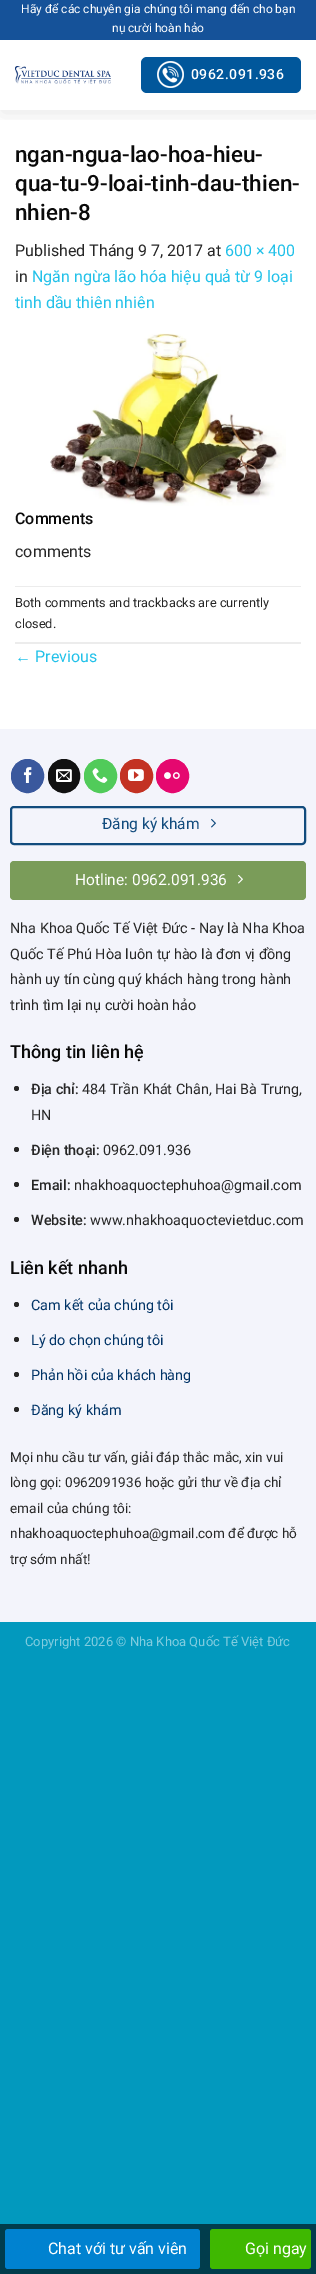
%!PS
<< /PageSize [316 2274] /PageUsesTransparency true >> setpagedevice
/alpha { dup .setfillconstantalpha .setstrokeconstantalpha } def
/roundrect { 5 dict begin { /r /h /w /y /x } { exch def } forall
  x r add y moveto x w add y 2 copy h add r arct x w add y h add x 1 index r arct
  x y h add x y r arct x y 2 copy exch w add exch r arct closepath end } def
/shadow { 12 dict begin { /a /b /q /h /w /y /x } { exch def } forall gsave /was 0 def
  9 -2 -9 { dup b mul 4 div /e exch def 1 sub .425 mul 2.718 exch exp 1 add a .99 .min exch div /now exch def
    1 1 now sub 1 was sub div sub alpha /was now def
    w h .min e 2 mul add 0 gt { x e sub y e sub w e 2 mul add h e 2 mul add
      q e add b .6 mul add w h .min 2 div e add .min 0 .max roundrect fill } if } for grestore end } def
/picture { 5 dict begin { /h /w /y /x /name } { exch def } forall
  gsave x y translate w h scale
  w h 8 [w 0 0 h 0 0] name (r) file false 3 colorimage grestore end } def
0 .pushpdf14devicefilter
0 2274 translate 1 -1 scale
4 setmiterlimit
0.008 0.6 0.745 setrgbcolor
0 0 316 2274 rectfill
1 setgray
0 40 316 689 rectfill
gsave
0 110 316 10 rectclip
0 setgray
2 42 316 70 0 10 0.1 shadow
grestore
0.082 0.322 0.6 setrgbcolor
0 0 316 40 rectfill
/Roboto-Regular [12 0 0 -12 0 0] selectfont
1 setgray
21 13 moveto (Hãy để các chuyên gia chúng tôi mang đến cho bạn) show
112 32 moveto (nụ cười hoàn hảo) show
(img1.rgb) 15 66 96 18 picture
0.004 0.341 0.608 setrgbcolor
141 57 160 36 6 roundrect fill
(img2.rgb) 157 61 27 27 picture
/Roboto-Medium [14 0 0 -14 0 0] selectfont
1 setgray
191 79 moveto 0.5 0 (0962.091.936) ashow
/Roboto-Medium [22.4 0 0 -22.4 0 0] selectfont
0.039 setgray
15 162 moveto (ngan-ngua-lao-hoa-hieu-) show
15 191 moveto (qua-tu-9-loai-tinh-dau-thien-) show
15 220 moveto (nhien-8) show
/Roboto-Regular [16 0 0 -16 0 0] selectfont
0.149 setgray
15 256 moveto (Published Tháng 9 7, 2017 at) show
0.133 0.757 0.914 setrgbcolor
225 256 moveto (600 × 400) show
0.149 setgray
15 282 moveto (in) show
0.133 0.757 0.914 setrgbcolor
32 282 moveto (Ngăn ngừa lão hóa hiệu quả từ 9 loại) show
15 308 moveto (tinh dầu thiên nhiên) show
(img3.rgb) 50 333 236 173 picture
/Roboto-Medium [16 0 0 -16 0 0] selectfont
0.039 setgray
15 524 moveto (Comments) show
/Roboto-Regular [16 0 0 -16 0 0] selectfont
0.149 setgray
15 557 moveto (comments) show
0.925 setgray
15 586 286 1 rectfill
15 642 286 2 rectfill
/Roboto-Regular [12.75 0 0 -12.75 0 0] selectfont
0.149 setgray
15 607 moveto (Both comments and trackbacks are currently) show
15 628 moveto (closed.) show
/LiberationSans-Regular [16 0 0 -16 0 0] selectfont
0.133 0.757 0.914 setrgbcolor
15 662 moveto (←) show
/Roboto-Regular [16 0 0 -16 0 0] selectfont
35 662 moveto (Previous) show
0.953 0.957 0.984 setrgbcolor
0 729 316 893 rectfill
0.227 0.345 0.616 setrgbcolor
11.5 759.5 32 33 16 roundrect gsave fill grestore
stroke
(img4.rgb) 23 767 9 16 picture
0.067 setgray
48.5 759.5 31 33 15.5 roundrect gsave fill grestore
stroke
(img5.rgb) 56 769 16 13 picture
0.318 0.796 0.353 setrgbcolor
84.5 759.5 32 33 16 roundrect gsave fill grestore
stroke
(img6.rgb) 92 768 16 15 picture
0.765 0.196 0.137 setrgbcolor
120.5 759.5 32 33 16 roundrect gsave fill grestore
stroke
(img7.rgb) 128 769 16 12 picture
0.898 0.031 0.435 setrgbcolor
156.5 759.5 32 33 16 roundrect gsave fill grestore
stroke
(img8.rgb) 164 772 16 7 picture
0.067 0.294 0.49 setrgbcolor
2 setlinewidth
11 807 294 37 3 roundrect stroke
/Roboto-Regular [15.5 0 0 -15.5 0 0] selectfont
102 829 moveto (Đăng ký khám) show
(img9.rgb) 211 818 5 10 picture
0.478 0.612 0.349 setrgbcolor
10 861 296 39 4 roundrect fill
1 setgray
75 885 moveto (Hotline: 0962.091.936) show
(img10.rgb) 238 875 5 9 picture
/Roboto-Regular [14.4 0 0 -14.4 0 0] selectfont
0.149 setgray
10 933 moveto (Nha Khoa Quốc Tế Việt Đức - Nay là Nha Khoa) show
10 959 moveto (Quốc Tế Phú Hòa luôn tự hào là đơn vị đồng) show
10 984 moveto (hành uy tín cùng quý khách hàng trong hành) show
10 1010 moveto (trình tìm lại nụ cười hoàn hảo) show
/Roboto-Medium [18 0 0 -18 0 0] selectfont
0.039 setgray
10 1058 moveto (Thông tin liên hệ) show
0.149 setgray
newpath 16.5 1088.5 2.5 0 360 arc closepath fill
/Roboto-Medium [14.4 0 0 -14.4 0 0] selectfont
31 1094 moveto (Địa chỉ:) show
/Roboto-Regular [14.4 0 0 -14.4 0 0] selectfont
82 1094 moveto (484 Trần Khát Chân, Hai Bà Trưng,) show
31 1120 moveto (HN) show
newpath 16.5 1149.5 2.5 0 360 arc closepath fill
/Roboto-Medium [14.4 0 0 -14.4 0 0] selectfont
31 1155 moveto (Điện thoại:) show
/Roboto-Regular [14.4 0 0 -14.4 0 0] selectfont
103 1155 moveto (0962.091.936) show
newpath 16.5 1184.5 2.5 0 360 arc closepath fill
/Roboto-Medium [14.4 0 0 -14.4 0 0] selectfont
31 1190 moveto (Email:) show
/Roboto-Regular [14.4 0 0 -14.4 0 0] selectfont
74 1190 moveto (nhakhoaquoctephuhoa@gmail.com) show
newpath 16.5 1219.5 2.5 0 360 arc closepath fill
/Roboto-Medium [14.4 0 0 -14.4 0 0] selectfont
31 1225 moveto (Website:) show
/Roboto-Regular [14.4 0 0 -14.4 0 0] selectfont
90 1225 moveto (www.nhakhoaquoctevietduc.com) show
/Roboto-Medium [18 0 0 -18 0 0] selectfont
0.039 setgray
10 1274 moveto (Liên kết nhanh) show
0.149 setgray
newpath 16.5 1304.5 2.5 0 360 arc closepath fill
/Roboto-Regular [14.4 0 0 -14.4 0 0] selectfont
0 0.2 0.4 setrgbcolor
31 1310 moveto (Cam kết của chúng tôi) show
0.149 setgray
newpath 16.5 1339.5 2.5 0 360 arc closepath fill
0 0.2 0.4 setrgbcolor
31 1345 moveto (Lý do chọn chúng tôi) show
0.149 setgray
newpath 16.5 1374.5 2.5 0 360 arc closepath fill
0 0.2 0.4 setrgbcolor
31 1380 moveto (Phản hồi của khách hàng) show
0.149 setgray
newpath 16.5 1409.5 2.5 0 360 arc closepath fill
0 0.2 0.4 setrgbcolor
31 1415 moveto (Đăng ký khám) show
/Roboto-Regular [13.6 0 0 -13.6 0 0] selectfont
0.149 setgray
10 1462 moveto (Mọi nhu cầu tư vấn, giải đáp thắc mắc, xin vui) show
10 1487 moveto (lòng gọi: 0962091936 hoặc gửi thư về địa chỉ) show
10 1513 moveto (email của chúng tôi:) show
10 1538 moveto (nhakhoaquoctephuhoa@gmail.com để được hỗ) show
10 1564 moveto (trợ sớm nhất!) show
/Roboto-Regular [13 0 0 -13 0 0] selectfont
0.506 0.8 0.875 setrgbcolor
25 1646 moveto (Copyright 2026 © Nha Khoa Quốc Tế Việt Đức) show
0.004 0.239 0.298 setrgbcolor
0 2224 316 50 rectfill
0 0.51 0.816 setrgbcolor
5 2229 195 40 3 roundrect fill
/Roboto-Regular [16 0 0 -16 0 0] selectfont
1 setgray
48 2254 moveto (Chat với tư vấn viên) show
0.247 0.722 0.004 setrgbcolor
210 2229 101 40 3 roundrect fill
1 setgray
245 2254 moveto (Gọi ngay) show
.poppdf14devicefilter showpage
